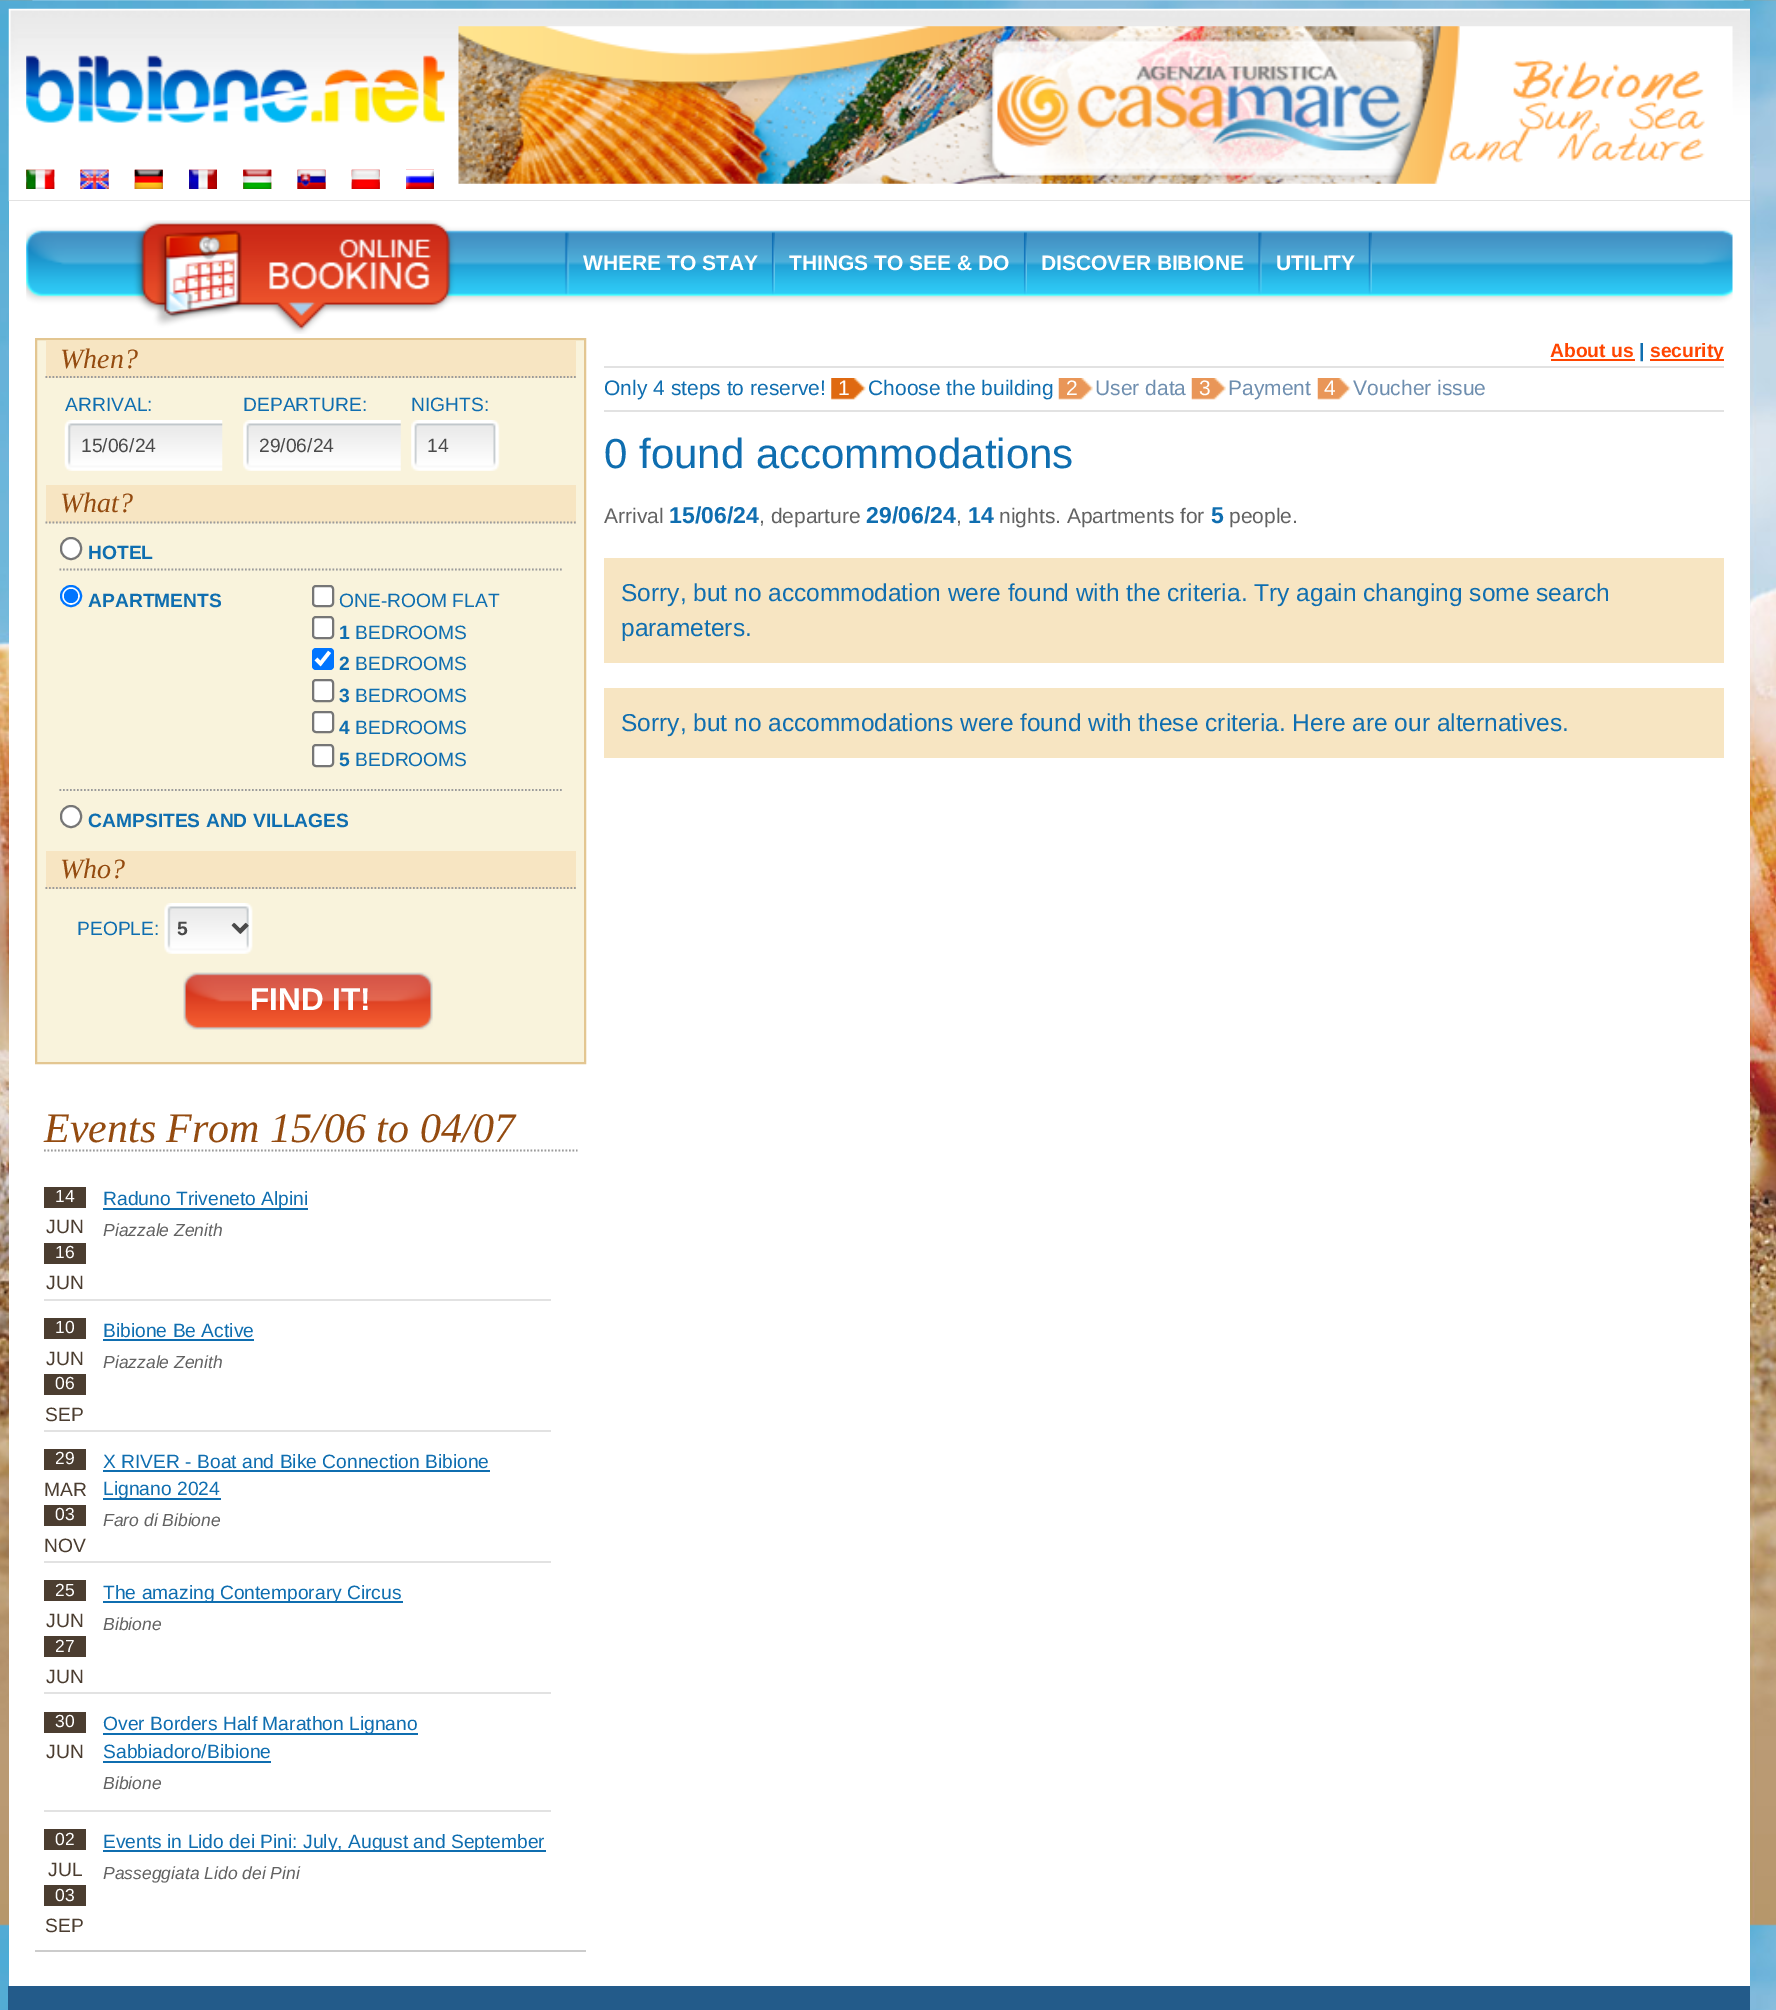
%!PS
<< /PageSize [1776 2010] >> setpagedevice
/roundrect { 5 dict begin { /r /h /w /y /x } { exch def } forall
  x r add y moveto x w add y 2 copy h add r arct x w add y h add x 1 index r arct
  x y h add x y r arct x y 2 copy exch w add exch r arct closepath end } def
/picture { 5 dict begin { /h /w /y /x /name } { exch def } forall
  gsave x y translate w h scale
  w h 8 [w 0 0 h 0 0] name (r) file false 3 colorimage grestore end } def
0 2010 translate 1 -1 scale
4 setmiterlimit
1 setgray
0 0 1776 2010 rectfill
(img1.rgb) 0 0 1776 2010 picture
(img2.rgb) 8 8 1742 194 picture
0.886 setgray
9 200 1741 1 rectfill
(img3.rgb) 26 55 419 68 picture
(img4.rgb) 458 26 1275 158 picture
(img5.rgb) 26 169 29 20 picture
(img6.rgb) 26 169 29 20 picture
(img7.rgb) 80 169 29 20 picture
(img8.rgb) 80 169 29 20 picture
(img9.rgb) 134 169 29 20 picture
(img10.rgb) 134 169 29 20 picture
(img11.rgb) 189 169 28 20 picture
(img12.rgb) 189 169 28 20 picture
(img5.rgb) 243 169 29 20 picture
(img13.rgb) 243 169 29 20 picture
(img14.rgb) 297 169 29 20 picture
(img15.rgb) 297 169 29 20 picture
(img16.rgb) 351 169 29 20 picture
(img17.rgb) 351 169 29 20 picture
(img18.rgb) 406 169 28 1 picture
(img19.rgb) 406 169 28 20 picture
1 setgray
9 201 1741 1785 rectfill
(img20.rgb) 26 220 1707 114 picture
/LiberationSans-Bold [21 0 0 -21 0 0] selectfont
583 270 moveto (WHERE TO STAY) show
(img21.rgb) 771 232 4 63 picture
789 270 moveto (THINGS TO SEE & DO) show
(img22.rgb) 1023 232 4 63 picture
1041 270 moveto (DISCOVER BIBIONE) show
(img23.rgb) 1258 232 4 63 picture
1276 270 moveto (UTILITY) show
(img24.rgb) 1368 232 4 63 picture
0.976 0.953 0.863 setrgbcolor
newpath 36 339 moveto 585 339 lineto 585 1063 lineto 36 1063 lineto closepath gsave fill grestore
0.89 0.776 0.569 setrgbcolor
2 setlinewidth
stroke
0.969 0.898 0.761 setrgbcolor
46 340 530 38 rectfill
0.608 setgray
1.8 setlinewidth
[1.75 1.75] 0 setdash
newpath 45.5 377 moveto 576 377 lineto stroke
/LiberationSerif-Italic [28 0 0 -28 0 0] selectfont
0.58 0.294 0.063 setrgbcolor
60 368 moveto (When?) show
/LiberationSans-Regular [19.25 0 0 -19.25 0 0] selectfont
0.059 0.431 0.69 setrgbcolor
65 411 moveto (ARRIVAL:) show
(img25.rgb) 64 420 159 51 picture
0.29 setgray
81 452 moveto (15/06/24) show
0.059 0.431 0.69 setrgbcolor
243 411 moveto (DEPARTURE:) show
(img26.rgb) 243 420 158 51 picture
0.29 setgray
259 452 moveto (29/06/24) show
0.059 0.431 0.69 setrgbcolor
411 411 moveto (NIGHTS:) show
(img27.rgb) 411 420 89 51 picture
0.29 setgray
427 452 moveto (14) show
0.969 0.898 0.761 setrgbcolor
46 485 530 38 rectfill
0.608 setgray
newpath 45.5 522.5 moveto 576 522.5 lineto stroke
/LiberationSerif-Italic [28 0 0 -28 0 0] selectfont
0.58 0.294 0.063 setrgbcolor
60 512 moveto (What?) show
1 setgray
61 538 20 21 10 roundrect gsave fill grestore
0.463 setgray
2 setlinewidth
[] 0 setdash
stroke
/LiberationSans-Bold [19.25 0 0 -19.25 0 0] selectfont
0.059 0.431 0.69 setrgbcolor
88 559 moveto (HOTEL) show
0.608 setgray
1.8 setlinewidth
[1.75 1.75] 0 setdash
newpath 59.5 569.5 moveto 562 569.5 lineto stroke
1 setgray
newpath 71 596 10 0 360 arc closepath gsave fill grestore
0 0.459 1 setrgbcolor
2 setlinewidth
[] 0 setdash
stroke
newpath 71 596 7 0 360 arc closepath fill
0.059 0.431 0.69 setrgbcolor
88 607 moveto (APARTMENTS) show
1 setgray
313 586 20 20 3 roundrect gsave fill grestore
0.463 setgray
stroke
/LiberationSans-Regular [19.25 0 0 -19.25 0 0] selectfont
0.059 0.431 0.69 setrgbcolor
339 607 moveto (ONE-ROOM FLAT) show
1 setgray
313 617 20 21 3 roundrect gsave fill grestore
0.463 setgray
stroke
/LiberationSans-Bold [19.25 0 0 -19.25 0 0] selectfont
0.059 0.431 0.69 setrgbcolor
339 639 moveto (1) show
/LiberationSans-Regular [19.25 0 0 -19.25 0 0] selectfont
355 639 moveto (BEDROOMS) show
0 0.459 1 setrgbcolor
312 648 22 22 4 roundrect fill
1 setgray
3.6 setlinewidth
newpath 316 659 moveto 320.5 663.5 lineto 329.5 652 lineto stroke
/LiberationSans-Bold [19.25 0 0 -19.25 0 0] selectfont
0.059 0.431 0.69 setrgbcolor
339 670 moveto (2) show
/LiberationSans-Regular [19.25 0 0 -19.25 0 0] selectfont
355 670 moveto (BEDROOMS) show
1 setgray
313 680 20 21 3 roundrect gsave fill grestore
0.463 setgray
2 setlinewidth
stroke
/LiberationSans-Bold [19.25 0 0 -19.25 0 0] selectfont
0.059 0.431 0.69 setrgbcolor
339 702 moveto (3) show
/LiberationSans-Regular [19.25 0 0 -19.25 0 0] selectfont
355 702 moveto (BEDROOMS) show
1 setgray
313 712 20 20 3 roundrect gsave fill grestore
0.463 setgray
stroke
/LiberationSans-Bold [19.25 0 0 -19.25 0 0] selectfont
0.059 0.431 0.69 setrgbcolor
339 734 moveto (4) show
/LiberationSans-Regular [19.25 0 0 -19.25 0 0] selectfont
355 734 moveto (BEDROOMS) show
1 setgray
313 745 20 21 3 roundrect gsave fill grestore
0.463 setgray
stroke
/LiberationSans-Bold [19.25 0 0 -19.25 0 0] selectfont
0.059 0.431 0.69 setrgbcolor
339 766 moveto (5) show
/LiberationSans-Regular [19.25 0 0 -19.25 0 0] selectfont
355 766 moveto (BEDROOMS) show
0.608 setgray
1.8 setlinewidth
[1.75 1.75] 0 setdash
newpath 59.5 790 moveto 562 790 lineto stroke
1 setgray
61 806 20 21 10 roundrect gsave fill grestore
0.463 setgray
2 setlinewidth
[] 0 setdash
stroke
/LiberationSans-Bold [19.25 0 0 -19.25 0 0] selectfont
0.059 0.431 0.69 setrgbcolor
88 827 moveto (CAMPSITES AND VILLAGES) show
0.969 0.898 0.761 setrgbcolor
46 851 530 38 rectfill
0.608 setgray
1.8 setlinewidth
[1.75 1.75] 0 setdash
newpath 45.5 888 moveto 576 888 lineto stroke
/LiberationSerif-Italic [28 0 0 -28 0 0] selectfont
0.58 0.294 0.063 setrgbcolor
60 878 moveto (Who?) show
/LiberationSans-Regular [19.25 0 0 -19.25 0 0] selectfont
0.059 0.431 0.69 setrgbcolor
77 935 moveto (PEOPLE:) show
(img28.rgb) 164 903 89 51 picture
0.29 setgray
3.5 setlinewidth
[] 0 setdash
newpath 233.5 924.5 moveto 240.5 931.5 lineto 247.5 924.5 lineto stroke
/LiberationSans-Bold [19.25 0 0 -19.25 0 0] selectfont
177 935 moveto (5) show
(img29.rgb) 183 972 250 58 picture
/LiberationSans-Bold [31.5 0 0 -31.5 0 0] selectfont
1 setgray
250 1010 moveto (FIND IT!) show
0.8 setgray
35 1950 551 2 rectfill
0.608 setgray
1.8 setlinewidth
[1.75 1.75] 0 setdash
newpath 44 1150.5 moveto 577.5 1150.5 lineto stroke
/LiberationSerif-Italic [42 0 0 -42 0 0] selectfont
0.58 0.294 0.063 setrgbcolor
44 1142 moveto (Events From 15/06 to 04/07) show
0.294 0.239 0.188 setrgbcolor
44 1187 42 21 rectfill
/LiberationSans-Regular [17.5 0 0 -17.5 0 0] selectfont
1 setgray
55 1202 moveto (14) show
/LiberationSans-Regular [19.25 0 0 -19.25 0 0] selectfont
0.294 0.239 0.188 setrgbcolor
46 1233 moveto (JUN) show
44 1243 42 21 rectfill
/LiberationSans-Regular [17.5 0 0 -17.5 0 0] selectfont
1 setgray
55 1258 moveto (16) show
/LiberationSans-Regular [19.25 0 0 -19.25 0 0] selectfont
0.294 0.239 0.188 setrgbcolor
46 1289 moveto (JUN) show
0.059 0.431 0.69 setrgbcolor
103 1208 205 2 rectfill
103 1205 moveto (Raduno Triveneto Alpini) show
/LiberationSans-Italic [17.5 0 0 -17.5 0 0] selectfont
0.384 setgray
103 1236 moveto (Piazzale Zenith) show
0.886 setgray
44 1299 507 2 rectfill
0.294 0.239 0.188 setrgbcolor
44 1318 42 21 rectfill
/LiberationSans-Regular [17.5 0 0 -17.5 0 0] selectfont
1 setgray
55 1333 moveto (10) show
/LiberationSans-Regular [19.25 0 0 -19.25 0 0] selectfont
0.294 0.239 0.188 setrgbcolor
46 1365 moveto (JUN) show
44 1374 42 21 rectfill
/LiberationSans-Regular [17.5 0 0 -17.5 0 0] selectfont
1 setgray
55 1389 moveto (06) show
/LiberationSans-Regular [19.25 0 0 -19.25 0 0] selectfont
0.294 0.239 0.188 setrgbcolor
45 1421 moveto (SEP) show
0.059 0.431 0.69 setrgbcolor
103 1337 moveto (Bibione Be Active) show
103 1339 151 2 rectfill
/LiberationSans-Italic [17.5 0 0 -17.5 0 0] selectfont
0.384 setgray
103 1368 moveto (Piazzale Zenith) show
0.886 setgray
44 1430 507 2 rectfill
0.294 0.239 0.188 setrgbcolor
44 1449 42 21 rectfill
/LiberationSans-Regular [17.5 0 0 -17.5 0 0] selectfont
1 setgray
55 1464 moveto (29) show
/LiberationSans-Regular [19.25 0 0 -19.25 0 0] selectfont
0.294 0.239 0.188 setrgbcolor
44 1496 moveto (MAR) show
44 1505 42 21 rectfill
/LiberationSans-Regular [17.5 0 0 -17.5 0 0] selectfont
1 setgray
55 1520 moveto (03) show
/LiberationSans-Regular [19.25 0 0 -19.25 0 0] selectfont
0.294 0.239 0.188 setrgbcolor
44 1552 moveto (NOV) show
0.059 0.431 0.69 setrgbcolor
103 1468 moveto (X RIVER - Boat and Bike Connection Bibione) show
103 1470 387 2 rectfill
103 1498 118 2 rectfill
103 1495 moveto (Lignano 2024) show
/LiberationSans-Italic [17.5 0 0 -17.5 0 0] selectfont
0.384 setgray
103 1526 moveto (Faro di Bibione) show
0.886 setgray
44 1561 507 2 rectfill
0.294 0.239 0.188 setrgbcolor
44 1580 42 21 rectfill
/LiberationSans-Regular [17.5 0 0 -17.5 0 0] selectfont
1 setgray
55 1596 moveto (25) show
/LiberationSans-Regular [19.25 0 0 -19.25 0 0] selectfont
0.294 0.239 0.188 setrgbcolor
46 1627 moveto (JUN) show
44 1636 42 21 rectfill
/LiberationSans-Regular [17.5 0 0 -17.5 0 0] selectfont
1 setgray
55 1652 moveto (27) show
/LiberationSans-Regular [19.25 0 0 -19.25 0 0] selectfont
0.294 0.239 0.188 setrgbcolor
46 1683 moveto (JUN) show
0.059 0.431 0.69 setrgbcolor
103 1601 300 2 rectfill
103 1599 moveto (The amazing Contemporary Circus) show
/LiberationSans-Italic [17.5 0 0 -17.5 0 0] selectfont
0.384 setgray
103 1630 moveto (Bibione) show
0.886 setgray
44 1692 507 2 rectfill
0.294 0.239 0.188 setrgbcolor
44 1712 42 21 rectfill
/LiberationSans-Regular [17.5 0 0 -17.5 0 0] selectfont
1 setgray
55 1727 moveto (30) show
/LiberationSans-Regular [19.25 0 0 -19.25 0 0] selectfont
0.294 0.239 0.188 setrgbcolor
46 1758 moveto (JUN) show
0.059 0.431 0.69 setrgbcolor
103 1733 315 2 rectfill
103 1730 moveto (Over Borders Half Marathon Lignano) show
103 1758 moveto (Sabbiadoro/Bibione) show
103 1761 168 2 rectfill
/LiberationSans-Italic [17.5 0 0 -17.5 0 0] selectfont
0.384 setgray
103 1789 moveto (Bibione) show
0.886 setgray
44 1810 507 2 rectfill
0.294 0.239 0.188 setrgbcolor
44 1829 42 21 rectfill
/LiberationSans-Regular [17.5 0 0 -17.5 0 0] selectfont
1 setgray
55 1845 moveto (02) show
/LiberationSans-Regular [19.25 0 0 -19.25 0 0] selectfont
0.294 0.239 0.188 setrgbcolor
48 1876 moveto (JUL) show
44 1885 42 21 rectfill
/LiberationSans-Regular [17.5 0 0 -17.5 0 0] selectfont
1 setgray
55 1901 moveto (03) show
/LiberationSans-Regular [19.25 0 0 -19.25 0 0] selectfont
0.294 0.239 0.188 setrgbcolor
45 1932 moveto (SEP) show
0.059 0.431 0.69 setrgbcolor
103 1850 443 2 rectfill
103 1848 moveto (Events in Lido dei Pini: July, August and September) show
/LiberationSans-Italic [17.5 0 0 -17.5 0 0] selectfont
0.384 setgray
103 1879 moveto (Passeggiata Lido dei Pini) show
/LiberationSans-Bold [19.25 0 0 -19.25 0 0] selectfont
1 0.271 0 setrgbcolor
1550 357 moveto (About us) show
1551 359 84 2 rectfill
0.059 0.431 0.69 setrgbcolor
1639 357 moveto (|) show
1 0.271 0 setrgbcolor
1650 359 74 2 rectfill
1650 357 moveto (security) show
0.886 setgray
604 366 1120 2 rectfill
604 410 1120 2 rectfill
/LiberationSans-Regular [21 0 0 -21 0 0] selectfont
0.059 0.431 0.69 setrgbcolor
604 395 moveto (Only 4 steps to reserve!) show
(img30.rgb) 831 378 35 22 picture
868 395 moveto (Choose the building) show
(img31.rgb) 1058 378 35 22 picture
0.431 0.557 0.686 setrgbcolor
1095 395 moveto (User data) show
(img31.rgb) 1191 378 35 22 picture
(img32.rgb) 1317 378 34 22 picture
1353 395 moveto (Voucher issue) show
1 setgray
838 395 moveto (1) show
1066 395 moveto (2) show
1199 395 moveto (3) show
0.431 0.557 0.686 setrgbcolor
1228 395 moveto (Payment) show
1 setgray
1324 395 moveto (4) show
/LiberationSans-Regular [42 0 0 -42 0 0] selectfont
0.059 0.431 0.69 setrgbcolor
604 468 moveto (0 found accommodations) show
/LiberationSans-Regular [21 0 0 -21 0 0] selectfont
0.384 setgray
604 523 moveto (Arrival) show
/LiberationSans-Bold [23 0 0 -23 0 0] selectfont
0.059 0.431 0.69 setrgbcolor
669 523 moveto (15/06/24) show
/LiberationSans-Regular [21 0 0 -21 0 0] selectfont
0.384 setgray
759 523 moveto (, departure) show
/LiberationSans-Bold [23 0 0 -23 0 0] selectfont
0.059 0.431 0.69 setrgbcolor
866 523 moveto (29/06/24) show
/LiberationSans-Regular [21 0 0 -21 0 0] selectfont
0.384 setgray
956 523 moveto (,) show
/LiberationSans-Bold [23 0 0 -23 0 0] selectfont
0.059 0.431 0.69 setrgbcolor
968 523 moveto (14) show
/LiberationSans-Regular [21 0 0 -21 0 0] selectfont
0.384 setgray
999 523 moveto (nights. Apartments for) show
/LiberationSans-Bold [23 0 0 -23 0 0] selectfont
0.059 0.431 0.69 setrgbcolor
1211 523 moveto (5) show
/LiberationSans-Regular [21 0 0 -21 0 0] selectfont
0.384 setgray
1229 523 moveto (people.) show
0.969 0.898 0.761 setrgbcolor
604 558 1120 105 rectfill
/LiberationSans-Regular [24.5 0 0 -24.5 0 0] selectfont
0.059 0.431 0.69 setrgbcolor
621 601 moveto (Sorry, but no accommodation were found with the criteria. Try again changing some search) show
621 636 moveto (parameters.) show
0.969 0.898 0.761 setrgbcolor
604 688 1120 70 rectfill
0.059 0.431 0.69 setrgbcolor
621 731 moveto (Sorry, but no accommodations were found with these criteria. Here are our alternatives.) show
0.137 0.357 0.541 setrgbcolor
8 1986 1742 24 rectfill
showpage
